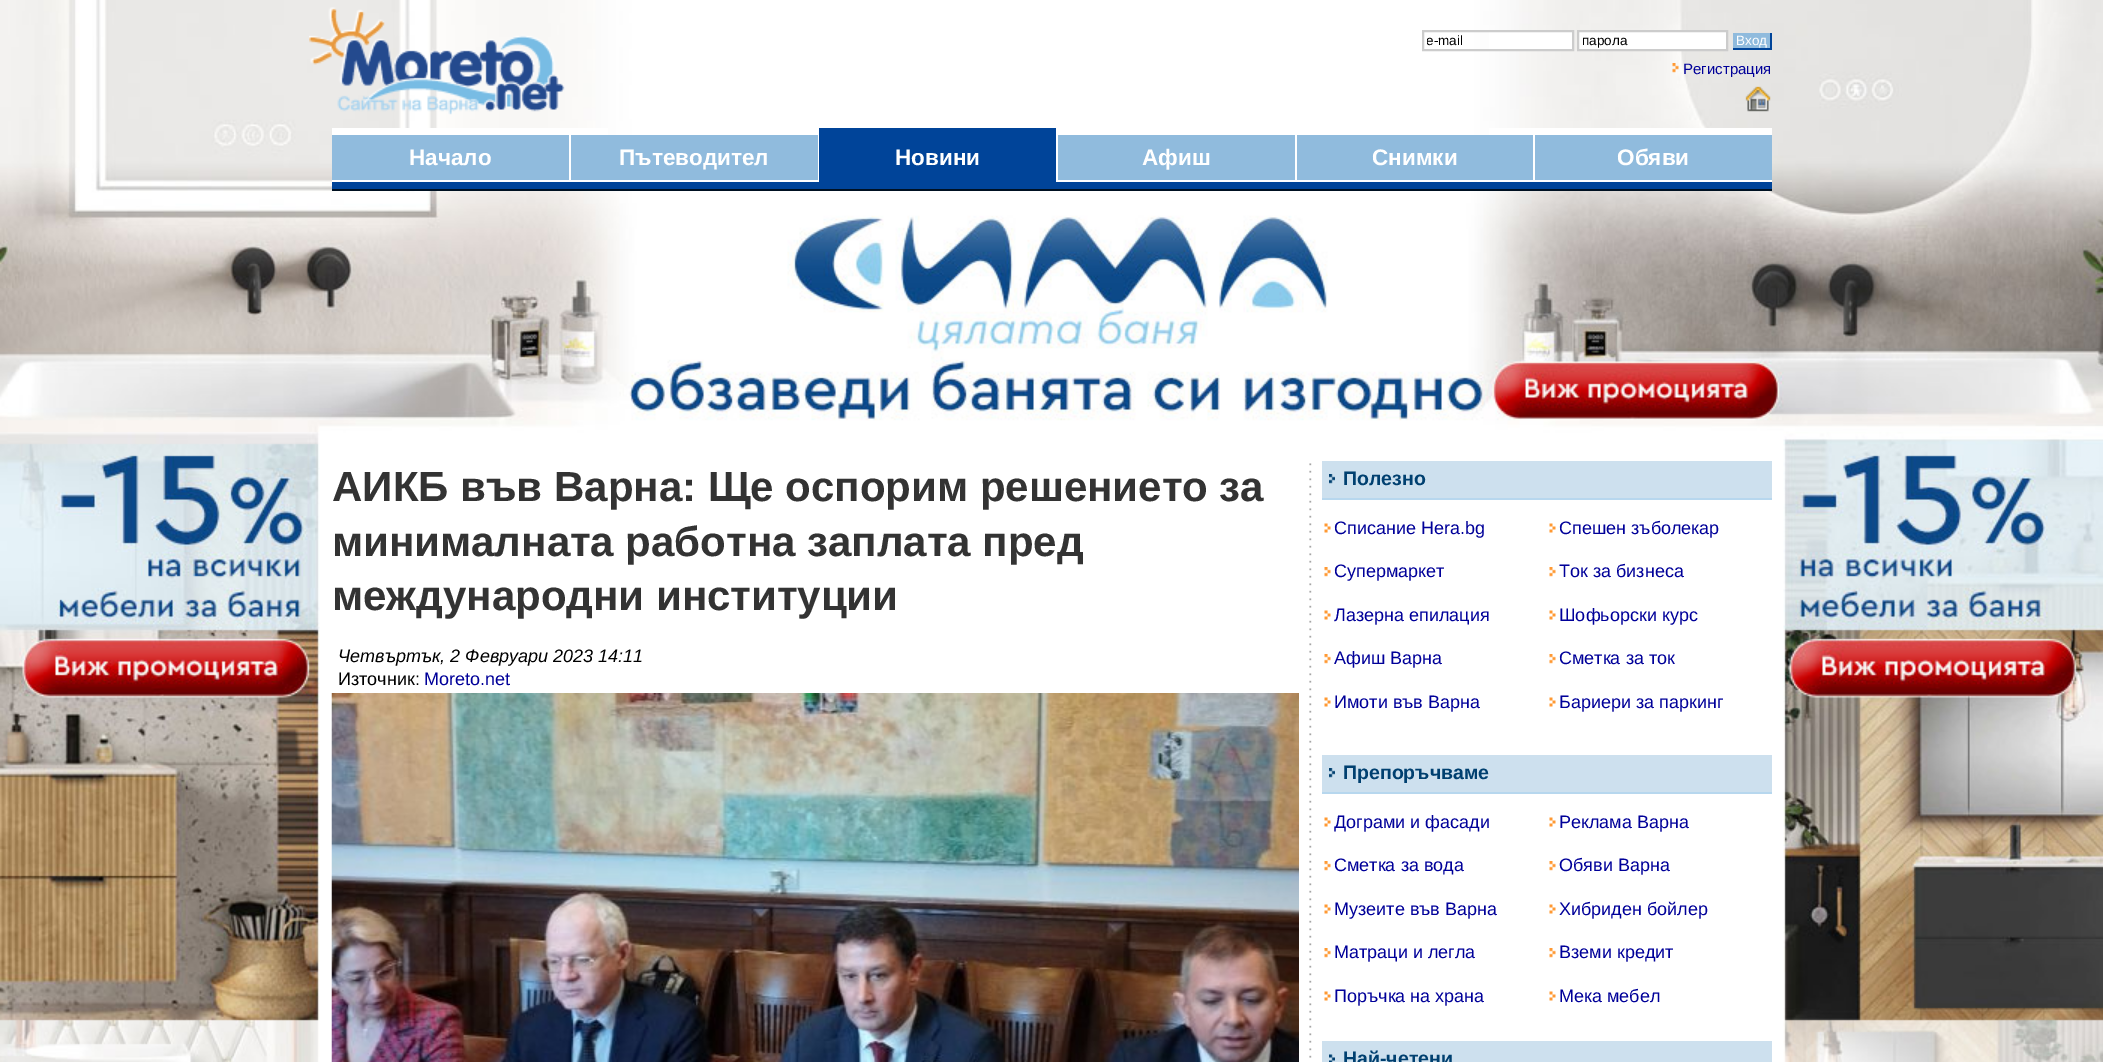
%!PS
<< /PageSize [2103 1062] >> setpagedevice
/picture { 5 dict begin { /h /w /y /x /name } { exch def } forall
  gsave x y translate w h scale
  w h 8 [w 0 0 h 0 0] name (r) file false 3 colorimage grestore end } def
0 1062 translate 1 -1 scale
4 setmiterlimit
1 setgray
0 0 2103 1062 rectfill
(img1.rgb) 0 0 2103 1062 picture
(img2.rgb) 309 7 256 108 picture
1489 32 83 17 rectfill
0.8 setgray
2 setlinewidth
1423 31 150 19 rectstroke
gsave
1427 33 142 15 rectclip
/LiberationSans-Regular [13.5 0 0 -13.5 0 0] selectfont
0 setgray
1426 45 moveto (e-mail) show
grestore
1 setgray
newpath 1578 31 moveto 1727 31 lineto 1727 50 lineto 1578 50 lineto closepath gsave fill grestore
0.8 setgray
stroke
/LiberationSans-Regular [13.5 0 0 -13.5 0 0] selectfont
0 setgray
1582 45 moveto (парола) show
0.565 0.733 0.867 setrgbcolor
1733 33 37 15 rectfill
0 0.267 0.6 setrgbcolor
1770 33 2 17 rectfill
1733 48 39 2 rectfill
1 setgray
1736 45 moveto (Вход) show
(img3.rgb) 1672 63 7 10 picture
/LiberationSans-Regular [15 0 0 -15 0 0] selectfont
0 0 0.6 setrgbcolor
1683 74 moveto (Регистрация) show
(img4.rgb) 1745 86 26 26 picture
0.565 0.733 0.867 setrgbcolor
332 135 1440 45 rectfill
1 setgray
332 128 237 7 rectfill
332 180 237 2 rectfill
/LiberationSans-Bold [22.5 0 0 -22.5 0 0] selectfont
409 165 moveto (Начало) show
569 128 2 54 rectfill
570 128 38 7 rectfill
570 180 50 2 rectfill
619 165 moveto (Пътеводител) show
818 128 1 54 rectfill
0 0.267 0.6 setrgbcolor
819 128 237 54 rectfill
1 setgray
895 165 moveto (Новини) show
1056 128 2 54 rectfill
1142 165 moveto (Афиш) show
1295 128 2 54 rectfill
1489 128 44 7 rectfill
1477 180 56 2 rectfill
1372 165 moveto (Снимки) show
1533 128 2 54 rectfill
1535 128 237 7 rectfill
1535 180 237 2 rectfill
1617 165 moveto (Обяви) show
0 0.267 0.6 setrgbcolor
332 182 1440 7 rectfill
0 0.067 0.133 setrgbcolor
332 189 1440 2 rectfill
/LiberationSans-Bold [42 0 0 -42 0 0] selectfont
0.2 setgray
332 501 moveto (АИКБ във Варна: Ще оспорим решението за) show
332 556 moveto (минималната работна заплата пред) show
332 610 moveto (международни институции) show
/LiberationSans-Italic [18 0 0 -18 0 0] selectfont
0 setgray
338 662 moveto (Четвъртък, 2 Февруари 2023 14:11) show
/LiberationSans-Regular [18 0 0 -18 0 0] selectfont
338 685 moveto (Източник:) show
0 0 0.6 setrgbcolor
424 685 moveto (Moreto.net) show
(img5.rgb) 331 693 968 369 picture
(img6.rgb) 1309 463 3 595 picture
0.804 0.878 0.933 setrgbcolor
1322 461 450 37 rectfill
0.718 0.843 0.933 setrgbcolor
1322 498 450 2 rectfill
(img7.rgb) 1329 474 6 10 picture
/LiberationSans-Bold [19.5 0 0 -19.5 0 0] selectfont
0 0.251 0.439 setrgbcolor
1343 485 moveto (Полезно) show
(img8.rgb) 1324 523 7 10 picture
/LiberationSans-Regular [18 0 0 -18 0 0] selectfont
0 0 0.6 setrgbcolor
1334 534 moveto (Списание Hera.bg) show
(img9.rgb) 1549 523 7 10 picture
1559 534 moveto (Спешен зъболекар) show
(img10.rgb) 1324 567 7 10 picture
1334 577 moveto (Супермаркет) show
(img11.rgb) 1549 567 7 10 picture
1559 577 moveto (Ток за бизнеса) show
(img8.rgb) 1324 610 7 10 picture
1334 621 moveto (Лазерна епилация) show
(img9.rgb) 1549 610 7 10 picture
1559 621 moveto (Шофьорски курс) show
(img10.rgb) 1324 654 7 10 picture
1334 664 moveto (Афиш Варна) show
(img11.rgb) 1549 654 7 10 picture
1559 664 moveto (Сметка за ток) show
(img8.rgb) 1324 697 7 10 picture
1334 708 moveto (Имоти във Варна) show
(img9.rgb) 1549 697 7 10 picture
1559 708 moveto (Бариери за паркинг) show
0.804 0.878 0.933 setrgbcolor
1322 755 450 37 rectfill
0.718 0.843 0.933 setrgbcolor
1322 792 450 2 rectfill
(img7.rgb) 1329 768 6 10 picture
/LiberationSans-Bold [19.5 0 0 -19.5 0 0] selectfont
0 0.251 0.439 setrgbcolor
1343 779 moveto (Препоръчваме) show
(img8.rgb) 1324 817 7 10 picture
/LiberationSans-Regular [18 0 0 -18 0 0] selectfont
0 0 0.6 setrgbcolor
1334 828 moveto (Дограми и фасади) show
(img9.rgb) 1549 817 7 10 picture
1559 828 moveto (Реклама Варна) show
(img10.rgb) 1324 861 7 10 picture
1334 871 moveto (Сметка за вода) show
(img11.rgb) 1549 861 7 10 picture
1559 871 moveto (Обяви Варна) show
(img8.rgb) 1324 904 7 10 picture
1334 915 moveto (Музеите във Варна) show
(img9.rgb) 1549 904 7 10 picture
1559 915 moveto (Хибриден бойлер) show
(img10.rgb) 1324 948 7 10 picture
1334 958 moveto (Матраци и легла) show
(img11.rgb) 1549 948 7 10 picture
1559 958 moveto (Вземи кредит) show
(img8.rgb) 1324 991 7 10 picture
1334 1002 moveto (Поръчка на храна) show
(img9.rgb) 1549 991 7 10 picture
1559 1002 moveto (Мека мебел) show
0.804 0.878 0.933 setrgbcolor
1322 1041 450 21 rectfill
(img12.rgb) 1329 1054 6 8 picture
/LiberationSans-Bold [19.5 0 0 -19.5 0 0] selectfont
0 0.251 0.439 setrgbcolor
1343 1065 moveto (Най-четени) show
showpage
